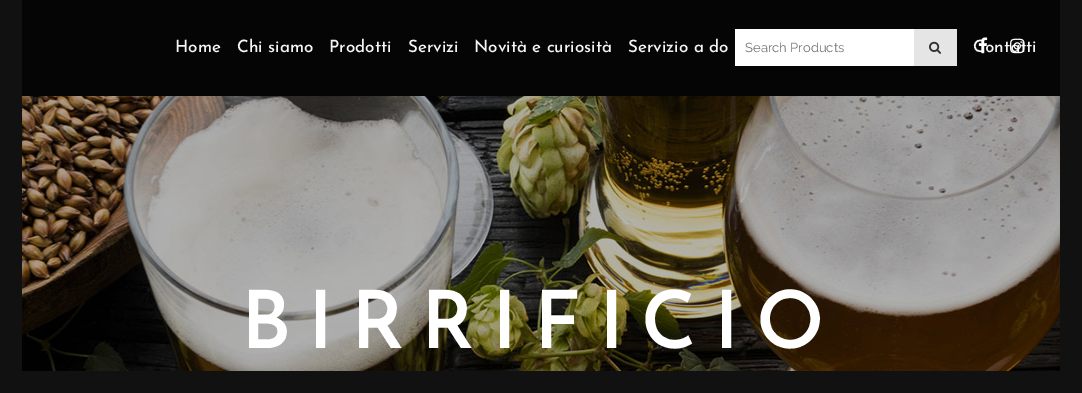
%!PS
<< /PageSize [1082 393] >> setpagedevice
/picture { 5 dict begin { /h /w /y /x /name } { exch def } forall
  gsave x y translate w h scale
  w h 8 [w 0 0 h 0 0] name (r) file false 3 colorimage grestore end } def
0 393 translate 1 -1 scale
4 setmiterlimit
1 setgray
0 0 1082 393 rectfill
0.02 setgray
22 0 1038 96 rectfill
/JosefinSans-Medium [17 0 0 -17 0 0] selectfont
0.961 setgray
175 52 moveto (Home) show
237 52 moveto (Chi siamo) show
329 52 moveto (Prodotti) show
408 52 moveto (Servizi) show
474 52 moveto (Novità e curiosità) show
628 52 moveto (Servizio a do) show
973 52 moveto (Contatti) show
1 setgray
735 29 179 37 rectfill
/Raleway-Regular [13 0 0 -13 0 0] selectfont
0.459 setgray
745 52 moveto (Search Products) show
0.898 setgray
914 29 43 37 rectfill
(img1.rgb) 929 41 12 13 picture
(img2.rgb) 978 37 10 17 picture
(img3.rgb) 1010 38 15 16 picture
0.067 setgray
0 0 22 371 rectfill
(img4.rgb) 22 96 1038 275 picture
/JosefinSans-SemiBold [80 0 0 -80 0 0] selectfont
1 setgray
241 348 moveto 17 0 (BIRRIFICIO) ashow
0.067 setgray
1060 0 22 371 rectfill
0 371 1082 22 rectfill
showpage
